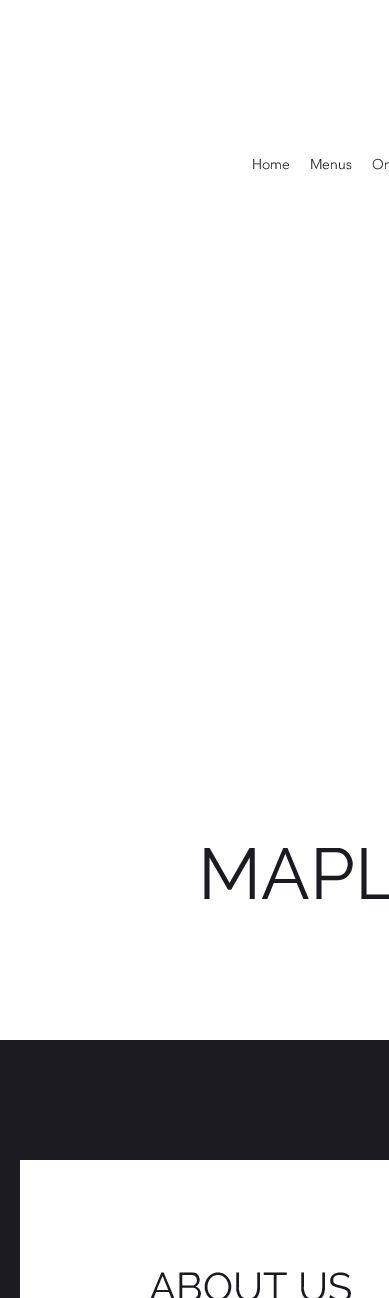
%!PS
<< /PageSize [389 1298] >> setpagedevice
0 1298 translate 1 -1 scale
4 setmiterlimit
1 setgray
0 0 389 1298 rectfill
/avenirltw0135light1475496-Light [14 0 0 -14 0 0] selectfont
0.098 setgray
252 169 moveto (Home) show
310 169 moveto (Menus) show
372 169 moveto (On) show
/Raleway-Regular [72 0 0 -72 0 0] selectfont
0.106 0.102 0.129 setrgbcolor
198 899 moveto (MAPL) show
0 1040 389 258 rectfill
1 setgray
20 1160 369 138 rectfill
/Raleway-Regular [40 0 0 -40 0 0] selectfont
0.106 0.102 0.129 setrgbcolor
149 1301 moveto (ABOUT US) show
showpage
